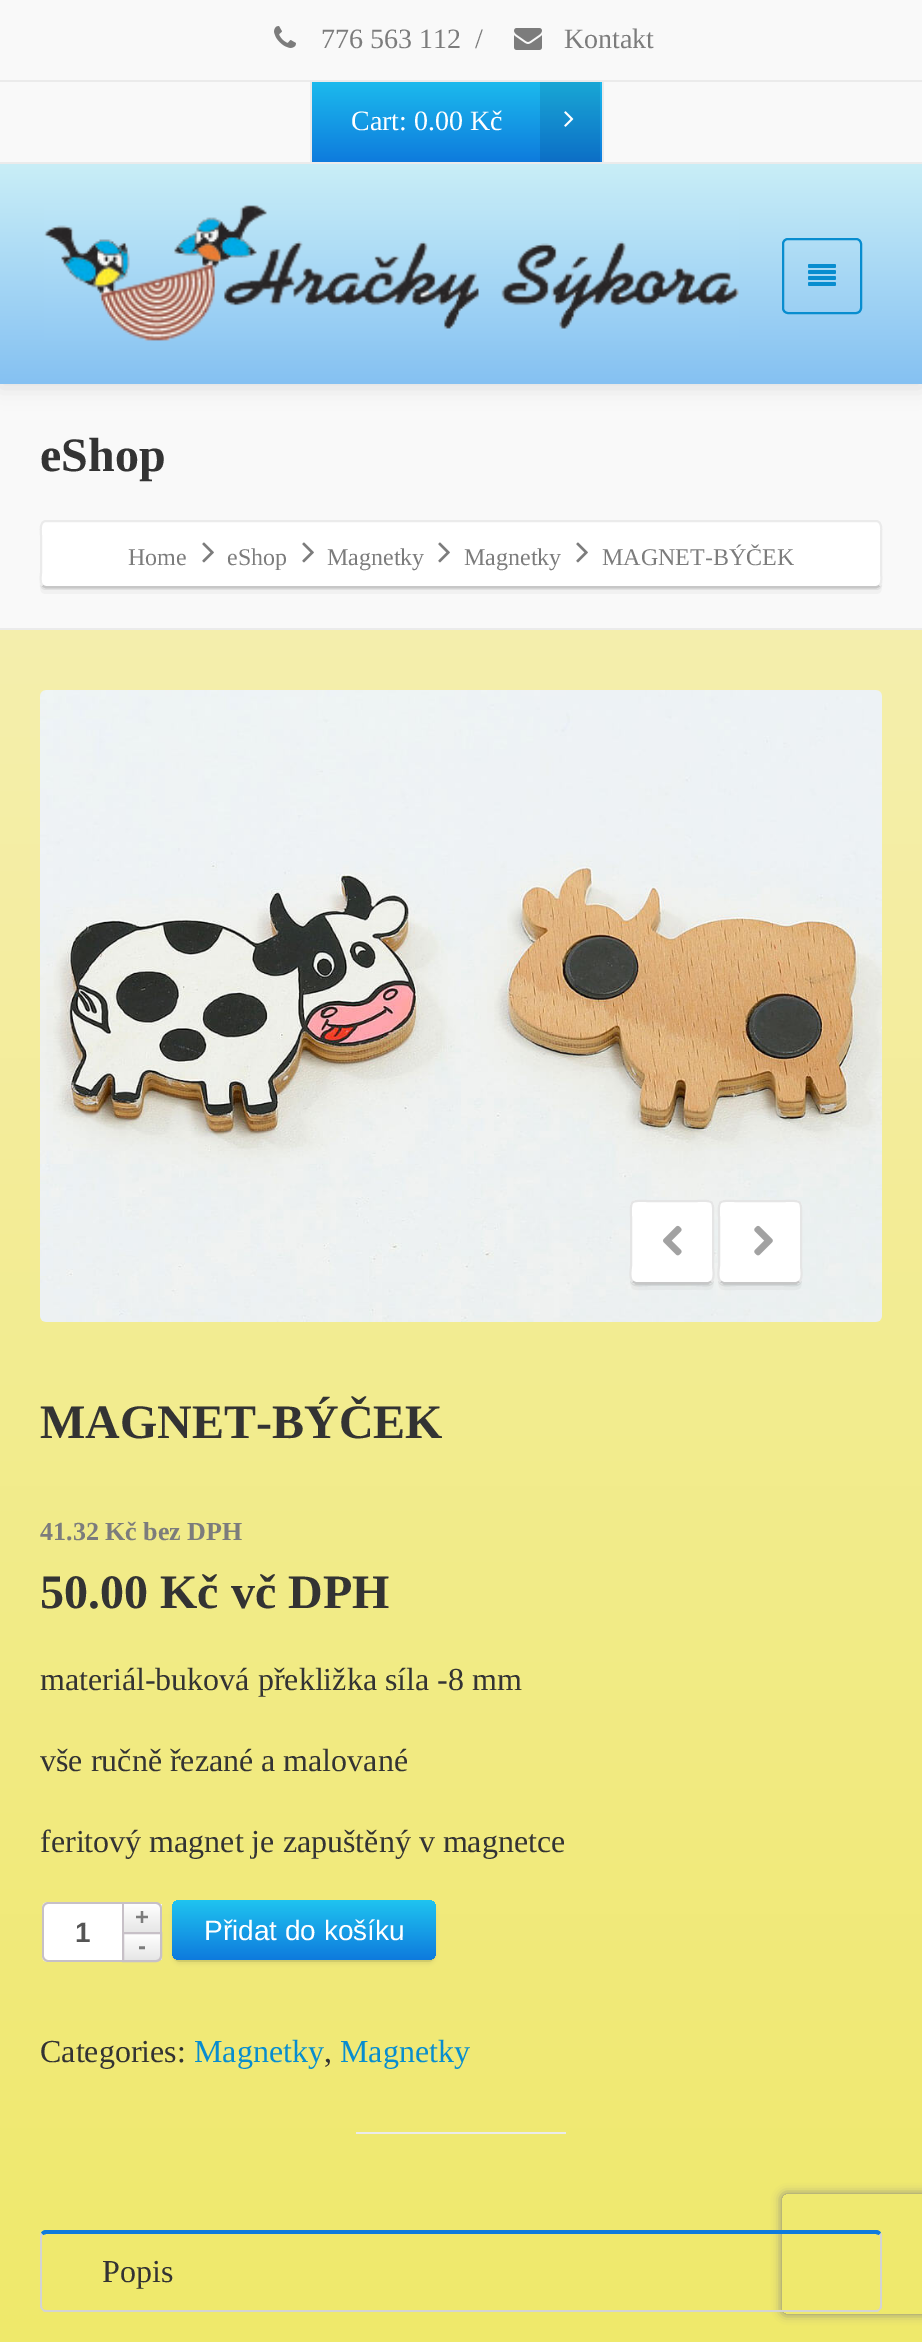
%!PS
<< /PageSize [922 2342] /PageUsesTransparency true >> setpagedevice
/alpha { dup .setfillconstantalpha .setstrokeconstantalpha } def
/roundrect { 5 dict begin { /r /h /w /y /x } { exch def } forall
  x r add y moveto x w add y 2 copy h add r arct x w add y h add x 1 index r arct
  x y h add x y r arct x y 2 copy exch w add exch r arct closepath end } def
/shadow { 12 dict begin { /a /b /q /h /w /y /x } { exch def } forall gsave /was 0 def
  9 -2 -9 { dup b mul 4 div /e exch def 1 sub .425 mul 2.718 exch exp 1 add a .99 .min exch div /now exch def
    1 1 now sub 1 was sub div sub alpha /was now def
    w h .min e 2 mul add 0 gt { x e sub y e sub w e 2 mul add h e 2 mul add
      q e add b .6 mul add w h .min 2 div e add .min 0 .max roundrect fill } if } for grestore end } def
/picture { 5 dict begin { /h /w /y /x /name } { exch def } forall
  gsave x y translate w h scale
  w h 8 [w 0 0 h 0 0] name (r) file false 3 colorimage grestore end } def
0 .pushpdf14devicefilter
0 2342 translate 1 -1 scale
4 setmiterlimit
1 setgray
0 0 922 2342 rectfill
gsave newpath 0 630 moveto 922 630 lineto 922 2342 lineto 0 2342 lineto closepath clip newpath
<< /ShadingType 2 /ColorSpace /DeviceRGB /Coords [461 0 461 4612] /Extend [true true] /Function << /FunctionType 2 /Domain [0 1] /C0 [0.969 0.945 0.776] /C1 [0.91 0.882 0.071] /N 1 >> >> shfill grestore
0.976 setgray
0 384 922 244 rectfill
0 setgray
0 168 922 220 0 10 0.1 shadow
0.976 setgray
0 0 922 162 rectfill
0.922 setgray
0 162 922 2 rectfill
0 80 922 2 rectfill
(img1.rgb) 274 26 22 22 picture
/LiberationSerif-Regular [28 0 0 -28 0 0] selectfont
0.486 setgray
321 48 moveto (776 563 112) show
475 48 moveto (/) show
(img2.rgb) 514 28 28 22 picture
564 48 moveto (Kontakt) show
0.922 setgray
602 82 2 80 rectfill
310 82 2 80 rectfill
gsave newpath 312 82 moveto 602 82 lineto 602 162 lineto 312 162 lineto closepath clip newpath
<< /ShadingType 2 /ColorSpace /DeviceRGB /Coords [457 82 457 162] /Extend [true true] /Function << /FunctionType 2 /Domain [0 1] /C0 [0.11 0.729 0.929] /C1 [0.055 0.482 0.867] /N 1 >> >> shfill grestore
1 setgray
351 130 moveto (Cart: 0.00 Kč) show
0.1 alpha
0 setgray
540 82 60 80 rectfill
1 alpha
(img3.rgb) 564 111 10 16 picture
gsave newpath 0 164 moveto 922 164 lineto 922 384 lineto 0 384 lineto closepath clip newpath
<< /ShadingType 2 /ColorSpace /DeviceRGB /Coords [461 164 461 384] /Extend [true true] /Function << /FunctionType 2 /Domain [0 1] /C0 [0.788 0.933 0.969] /C1 [0.522 0.757 0.949] /N 1 >> >> shfill grestore
(img4.rgb) 44 205 695 136 picture
0.031 0.553 0.812 setrgbcolor
2 setlinewidth
783 239 78 74 5 roundrect stroke
(img5.rgb) 808 264 28 22 picture
0.922 setgray
0 628 922 2 rectfill
/LiberationSerif-Bold [48 0 0 -48 0 0] selectfont
0.2 setgray
40 471 moveto (eShop) show
0.91 setgray
newpath 40 582 moveto 40 586 41 590 46 590 curveto 876 590 lineto 881 590 882 586 882 582 curveto 882 585 879 588 876 588 curveto 46 588 lineto 43 588 40 585 40 582 curveto closepath fill
0.03 alpha
0 setgray
newpath 40 582 moveto 40 587 39 594 46 594 curveto 876 594 lineto 883 594 882 587 882 582 curveto 882 585 879 588 876 588 curveto 46 588 lineto 43 588 40 585 40 582 curveto closepath fill
1 alpha
1 setgray
40 520 842 68 6 roundrect fill
0.22 alpha
0 setgray
newpath 879.5 585.5 moveto 878.5 586.5 877.5 587 876 587 curveto 46 587 lineto 44.5 587 43.5 586.5 42.5 585.5 curveto stroke
1 alpha
0.922 setgray
newpath 42.5 585.5 moveto 39.5 582.5 41 575 41 572.5 curveto 41 535.5 lineto 41 532 39 521 46 521 curveto 876 521 lineto 883 521 881 532 881 535.5 curveto 881 572.5 lineto 881 575 882.5 582.5 879.5 585.5 curveto stroke
/LiberationSerif-Regular [24 0 0 -24 0 0] selectfont
0.486 setgray
128 565 moveto (Home) show
(img6.rgb) 202 542 12 21 picture
227 565 moveto (eShop) show
(img6.rgb) 302 542 12 21 picture
327 565 moveto (Magnetky) show
(img6.rgb) 438 542 12 21 picture
464 565 moveto (Magnetky) show
(img6.rgb) 576 542 12 21 picture
602 565 moveto (MAGNET-BÝČEK) show
(img7.rgb) 40 690 842 632 picture
0.07 alpha
0 setgray
newpath 630 1278 moveto 630 1289 639 1286 648 1286 curveto 696 1286 lineto 705 1286 714 1289 714 1278 curveto 714 1281 711 1284 708 1284 curveto 636 1284 lineto 633 1284 630 1281 630 1278 curveto closepath fill
0.03 alpha
newpath 630 1278 moveto 630 1292 633 1290 648 1290 curveto 696 1290 lineto 711 1290 714 1292 714 1278 curveto 714 1281 711 1284 708 1284 curveto 636 1284 lineto 633 1284 630 1281 630 1278 curveto closepath fill
1 alpha
1 setgray
630 1200 84 84 6 roundrect fill
0.22 alpha
0 setgray
newpath 711.5 1281.5 moveto 708.5 1283 lineto 635.5 1283 lineto 632.5 1281.5 lineto stroke
1 alpha
0.898 setgray
newpath 632.5 1281.5 moveto 629 1278 631 1267.5 631 1266 curveto 631 1218 lineto 631 1199 629 1201 648 1201 curveto 696 1201 lineto 715 1201 713 1199 713 1218 curveto 713 1266 lineto 713 1267.5 715 1278 711.5 1281.5 curveto stroke
(img8.rgb) 663 1225 19 31 picture
0.07 alpha
0 setgray
newpath 718 1278 moveto 718 1289 727 1286 736 1286 curveto 784 1286 lineto 793 1286 802 1289 802 1278 curveto 802 1281 799 1284 796 1284 curveto 724 1284 lineto 721 1284 718 1281 718 1278 curveto closepath fill
0.03 alpha
newpath 718 1278 moveto 718 1292 721 1290 736 1290 curveto 784 1290 lineto 799 1290 802 1292 802 1278 curveto 802 1281 799 1284 796 1284 curveto 724 1284 lineto 721 1284 718 1281 718 1278 curveto closepath fill
1 alpha
1 setgray
718 1200 84 84 6 roundrect fill
0.22 alpha
0 setgray
newpath 799.5 1281.5 moveto 796.5 1283 lineto 723.5 1283 lineto 720.5 1281.5 lineto stroke
1 alpha
0.898 setgray
newpath 720.5 1281.5 moveto 717 1278 719 1267.5 719 1266 curveto 719 1218 lineto 719 1199 717 1201 736 1201 curveto 784 1201 lineto 803 1201 801 1199 801 1218 curveto 801 1266 lineto 801 1267.5 803 1278 799.5 1281.5 curveto stroke
(img9.rgb) 754 1225 19 31 picture
/LiberationSerif-Bold [48 0 0 -48 0 0] selectfont
0.2 setgray
40 1438 moveto (MAGNET-BÝČEK) show
/LiberationSerif-Bold [26 0 0 -26 0 0] selectfont
0.486 setgray
40 1540 moveto (41.32 Kč bez DPH) show
/LiberationSerif-Bold [48 0 0 -48 0 0] selectfont
0.2 setgray
40 1608 moveto (50.00 Kč vč DPH) show
/LiberationSerif-Regular [32 0 0 -32 0 0] selectfont
40 1690 moveto (materiál-buková překližka síla -8 mm) show
40 1771 moveto (vše ručně řezané a malované) show
40 1852 moveto (feritový magnet je zapuštěný v magnetce) show
gsave
newpath 122 1902 moveto 156 1902 lineto 159.5 1902 162 1904.5 162 1908 curveto 162 1932 lineto 122 1932 lineto closepath clip newpath
gsave newpath 124 1904 moveto 162 1904 lineto 162 1932 lineto 124 1932 lineto closepath clip newpath
<< /ShadingType 2 /ColorSpace /DeviceRGB /Coords [142 1904 142 1932] /Extend [true true] /Function << /FunctionType 2 /Domain [0 1] /C0 [1 1 1] /C1 [0.902 0.902 0.902] /N 1 >> >> shfill grestore
grestore
0.78 0.753 0.78 setrgbcolor
newpath 122 1902 moveto 156 1902 lineto 159 1902 162 1905 162 1908 curveto 162 1932 lineto 122 1932 lineto closepath 124 1904 moveto 156 1904 lineto 158 1904 160 1906 160 1908 curveto 160 1932 lineto 124 1932 lineto closepath eofill
/LiberationSans-Bold [24 0 0 -24 0 0] selectfont
0.486 setgray
135 1925 moveto (+) show
1 setgray
newpath 48 1902 moveto 122 1902 lineto 122 1962 lineto 48 1962 lineto 44.5 1962 42 1959.5 42 1956 curveto 42 1908 lineto 42 1904.5 44.5 1902 48 1902 curveto closepath fill
0.78 0.753 0.78 setrgbcolor
newpath 48 1902 moveto 122 1902 lineto 122 1962 lineto 48 1962 lineto 45 1962 42 1959 42 1956 curveto 42 1908 lineto 42 1905 45 1902 48 1902 curveto closepath 48 1904 moveto 122 1904 lineto 122 1960 lineto 48 1960 lineto 46 1960 44 1958 44 1956 curveto 44 1908 lineto 44 1906 46 1904 48 1904 curveto closepath eofill
/LiberationSans-Bold [28 0 0 -28 0 0] selectfont
0.333 setgray
75 1942 moveto (1) show
gsave
newpath 122 1932 moveto 162 1932 lineto 162 1956 lineto 162 1959.5 159.5 1962 156 1962 curveto 122 1962 lineto closepath clip newpath
gsave newpath 124 1934 moveto 162 1934 lineto 162 1960 lineto 124 1960 lineto closepath clip newpath
<< /ShadingType 2 /ColorSpace /DeviceRGB /Coords [142 1934 142 1960] /Extend [true true] /Function << /FunctionType 2 /Domain [0 1] /C0 [1 1 1] /C1 [0.902 0.902 0.902] /N 1 >> >> shfill grestore
grestore
0.78 0.753 0.78 setrgbcolor
newpath 123 1933 moveto 161 1933 lineto 161 1956 lineto 161 1959 159 1961 156 1961 curveto 123 1961 lineto closepath stroke
/LiberationSans-Bold [24 0 0 -24 0 0] selectfont
0.486 setgray
138 1954 moveto (-) show
0.871 0.843 0.435 setrgbcolor
newpath 172 1952 moveto 172 1954 lineto 172 1958 176 1962 180 1962 curveto 428 1962 lineto 432 1962 436 1958 436 1954 curveto 436 1952 lineto 436 1956 432 1960 428 1960 curveto 180 1960 lineto 176 1960 172 1956 172 1952 curveto closepath fill
0 setgray
172 1904 264 60 8 2 0.05 shadow
gsave 172 1900 264 60 8 roundrect clip newpath
<< /ShadingType 2 /ColorSpace /DeviceRGB /Coords [304 1900 304 1960] /Extend [true true] /Function << /FunctionType 2 /Domain [0 1] /C0 [0.122 0.769 0.941] /C1 [0.055 0.478 0.867] /N 1 >> >> shfill grestore
/LiberationSans-Regular [28 0 0 -28 0 0] selectfont
1 setgray
204 1940 moveto (Přidat do košíku) show
/LiberationSerif-Regular [32 0 0 -32 0 0] selectfont
0.2 setgray
40 2062 moveto (Categories:) show
0.031 0.553 0.812 setrgbcolor
194 2062 moveto (Magnetky) show
0.2 setgray
324 2062 moveto (,) show
0.031 0.553 0.812 setrgbcolor
340 2062 moveto (Magnetky) show
0.922 setgray
356 2132 210 2 rectfill
gsave
newpath 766 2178 moveto 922 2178 lineto 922 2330 lineto 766 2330 lineto closepath 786 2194 moveto 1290 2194 lineto 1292 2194 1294 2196 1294 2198 curveto 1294 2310 lineto 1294 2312 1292 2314 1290 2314 curveto 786 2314 lineto 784 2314 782 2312 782 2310 curveto 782 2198 lineto 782 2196 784 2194 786 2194 curveto closepath eoclip newpath
0.502 setgray
782 2194 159 120 4 5 1 shadow
grestore
0.055 0.482 0.867 setrgbcolor
newpath 46 2230 moveto 44 2230 42 2231 41 2233 curveto 43 2235 lineto 46 2234 lineto 876 2234 lineto 879 2235 lineto 881 2233 lineto 880 2231 878 2230 876 2230 curveto closepath fill
0.831 setgray
newpath 882 2306 moveto 882 2236 lineto 882 2235 882 2234 881 2233 curveto 879 2235 lineto 880 2236 lineto 880 2306 lineto 880 2307 880 2308 879 2309 curveto 880 2310 lineto 881 2309 882 2308 882 2306 curveto closepath fill
newpath 46 2312 moveto 876 2312 lineto 878 2312 879 2311 880 2310 curveto 879 2309 lineto 878 2310 877 2310 876 2310 curveto 46 2310 lineto 45 2310 44 2310 43 2309 curveto 42 2310 lineto 43 2311 44 2312 46 2312 curveto closepath fill
newpath 40 2236 moveto 40 2307 lineto 42 2310 lineto 43 2309 lineto 42 2308 42 2307 42 2306 curveto 42 2236 lineto 43 2235 lineto 41 2233 lineto closepath fill
0.2 setgray
102 2282 moveto (Popis) show
.poppdf14devicefilter showpage
